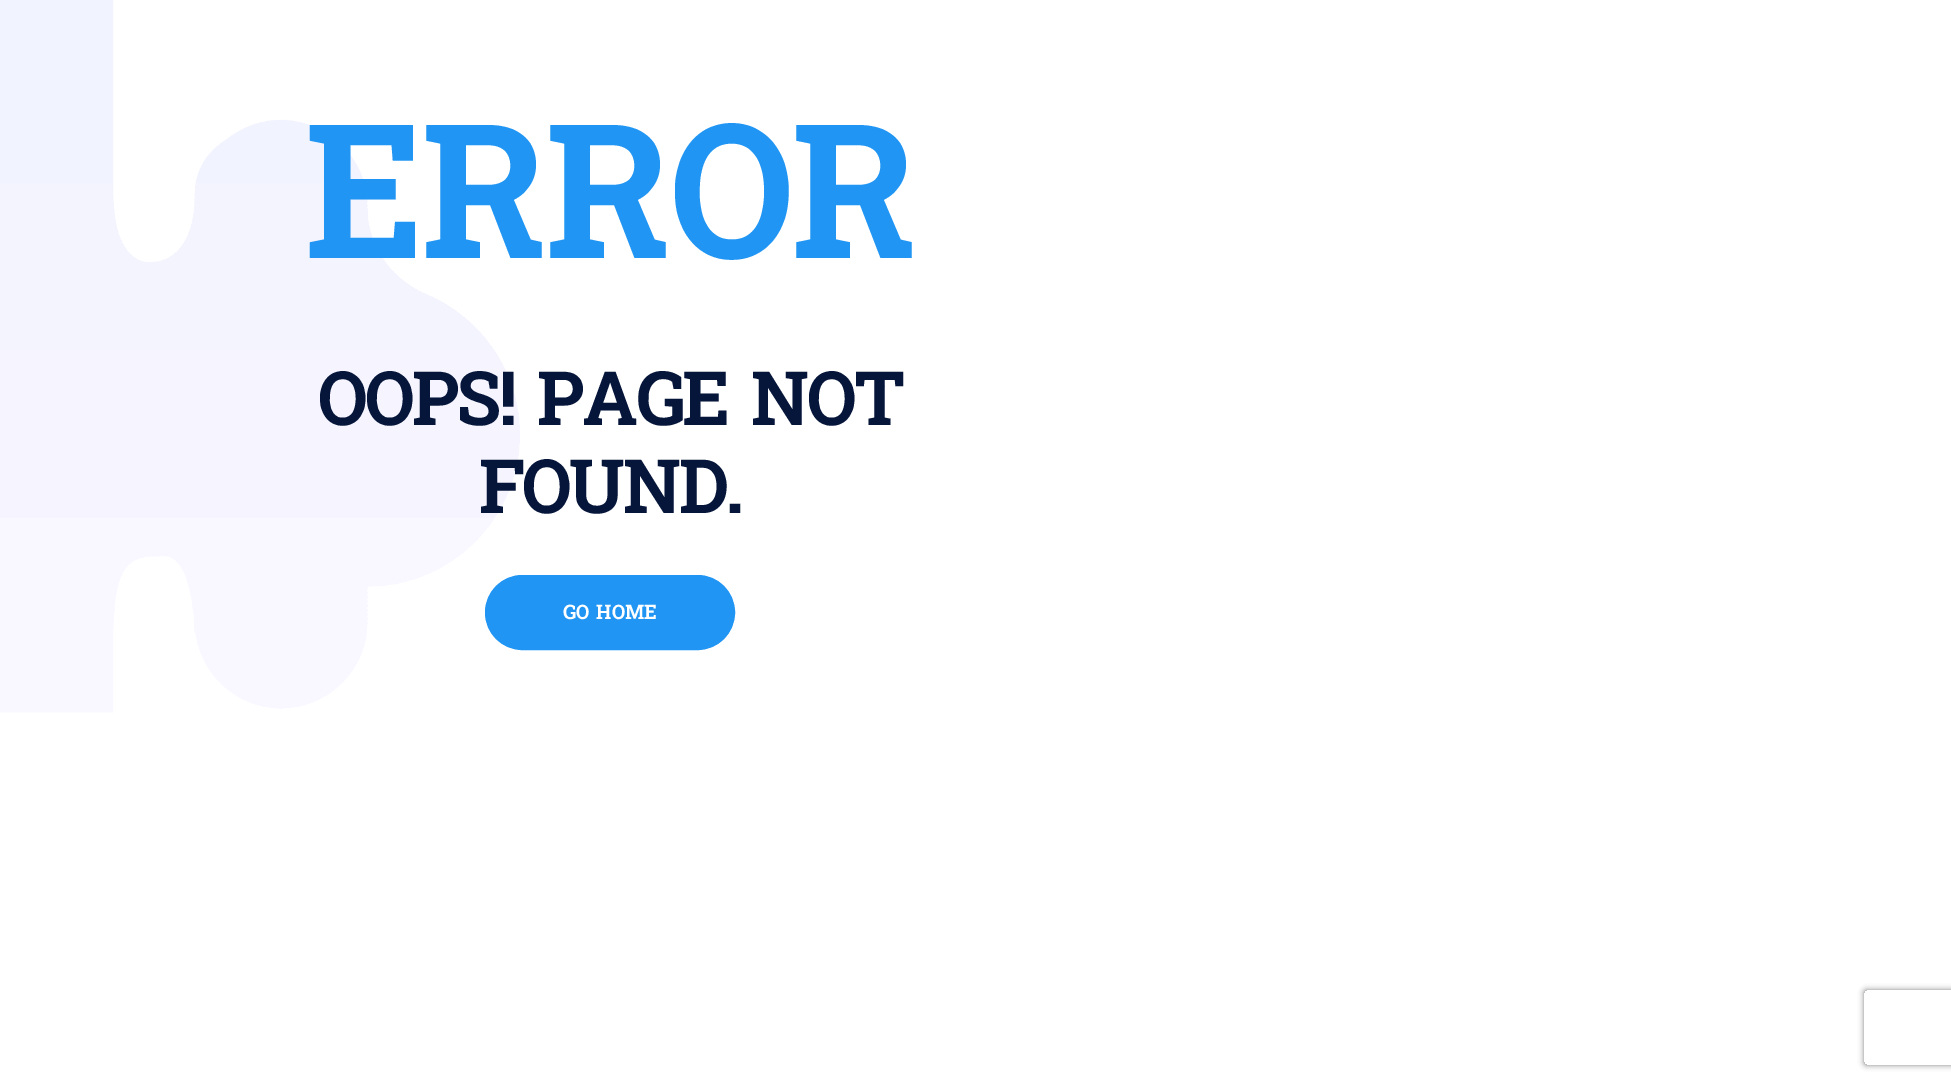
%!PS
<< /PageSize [1951 1082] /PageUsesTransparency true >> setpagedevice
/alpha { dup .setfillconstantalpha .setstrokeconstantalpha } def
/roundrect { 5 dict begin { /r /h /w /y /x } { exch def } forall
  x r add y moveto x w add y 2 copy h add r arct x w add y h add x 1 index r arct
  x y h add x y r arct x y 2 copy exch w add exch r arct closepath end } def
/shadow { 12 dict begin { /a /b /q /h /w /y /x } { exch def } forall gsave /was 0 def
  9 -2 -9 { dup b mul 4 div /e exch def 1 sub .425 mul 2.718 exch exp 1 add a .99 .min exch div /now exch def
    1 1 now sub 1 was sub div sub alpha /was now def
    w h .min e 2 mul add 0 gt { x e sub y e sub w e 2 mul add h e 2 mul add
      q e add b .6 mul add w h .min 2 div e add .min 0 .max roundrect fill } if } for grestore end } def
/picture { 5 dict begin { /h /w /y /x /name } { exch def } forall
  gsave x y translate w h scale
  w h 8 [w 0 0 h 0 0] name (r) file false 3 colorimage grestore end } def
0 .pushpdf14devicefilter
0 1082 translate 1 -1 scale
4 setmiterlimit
1 setgray
0 0 1951 1082 rectfill
(img1.rgb) 0 0 520 713 picture
/Hanuman-Bold [187.5 0 0 -187.5 0 0] selectfont
0.125 0.584 0.953 setrgbcolor
304 258 moveto -2.5 0 (ERROR) ashow
/Hanuman-Bold [75 0 0 -75 0 0] selectfont
0.024 0.086 0.227 setrgbcolor
318 425 moveto -2.5 0 (OOPS! PAGE NOT) ashow
479 513 moveto -2.5 0 (FOUND.) ashow
0.125 0.584 0.953 setrgbcolor
485.5 575.5 249 74 37 roundrect gsave fill grestore
stroke
/Hanuman-Bold [20 0 0 -20 0 0] selectfont
1 setgray
563 619 moveto (GO HOME) show
gsave
newpath 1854 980 moveto 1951 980 lineto 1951 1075 lineto 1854 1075 lineto closepath 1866.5 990 moveto 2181.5 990 lineto 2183 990 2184 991 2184 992.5 curveto 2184 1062.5 lineto 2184 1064 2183 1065 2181.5 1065 curveto 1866.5 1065 lineto 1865 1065 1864 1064 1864 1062.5 curveto 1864 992.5 lineto 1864 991 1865 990 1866.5 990 curveto closepath eoclip newpath
0.502 setgray
1864 990 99 75 2.5 3 1 shadow
grestore
.poppdf14devicefilter showpage
